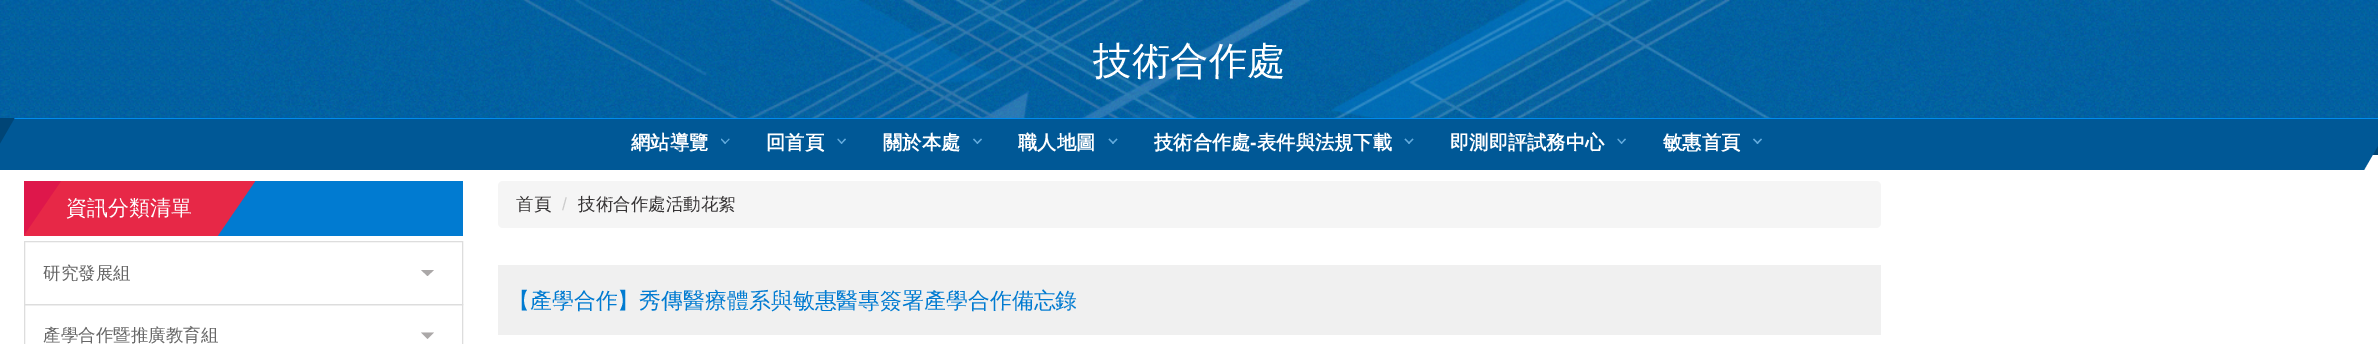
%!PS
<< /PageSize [2378 344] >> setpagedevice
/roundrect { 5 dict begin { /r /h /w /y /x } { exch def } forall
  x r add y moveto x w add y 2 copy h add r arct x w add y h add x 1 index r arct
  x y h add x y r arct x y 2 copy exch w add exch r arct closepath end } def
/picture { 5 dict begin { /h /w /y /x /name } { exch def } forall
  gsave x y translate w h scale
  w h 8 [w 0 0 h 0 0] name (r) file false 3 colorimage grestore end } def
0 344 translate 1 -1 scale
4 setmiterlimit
1 setgray
0 0 2378 344 rectfill
(img1.rgb) 0 0 2378 118 picture
0 0.271 0.463 setrgbcolor
0 118 2378 37 rectfill
/WenQuanYiZenHei-Medium [38.5 0 0 -38.5 0 0] selectfont
1 setgray
1093 74 moveto (技術合作處) show
0 0.345 0.588 setrgbcolor
newpath 15 118 moveto 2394 118 lineto 2364 170 lineto -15 170 lineto closepath fill
0 0.549 0.937 setrgbcolor
newpath 15 118 moveto 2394 118 lineto 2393 119 lineto 14 119 lineto closepath fill
/WenQuanYiZenHei-Bold [19.25 0 0 -19.25 0 0] selectfont
1 setgray
631 149 moveto (網站導覽) show
0.392 0.675 0.871 setrgbcolor
newpath 729.5 139.5 moveto 725 144 lineto 724.5 143 lineto 729 138.5 lineto closepath fill
newpath 726 143 moveto 725 144 lineto 721 139.5 lineto 721.5 138.5 lineto closepath fill
1 setgray
766 149 moveto (回首頁) show
0.392 0.675 0.871 setrgbcolor
newpath 846 139.5 moveto 841.5 144 lineto 841 143 lineto 845 138.5 lineto closepath fill
newpath 842.5 143 moveto 841.5 144 lineto 837.5 139.5 lineto 838 138.5 lineto closepath fill
1 setgray
883 149 moveto (關於本處) show
0.392 0.675 0.871 setrgbcolor
newpath 982 139.5 moveto 977.5 144 lineto 976.5 143 lineto 981 138.5 lineto closepath fill
newpath 978 143 moveto 977.5 144 lineto 973 139.5 lineto 974 138.5 lineto closepath fill
1 setgray
1018 149 moveto (職人地圖) show
0.392 0.675 0.871 setrgbcolor
newpath 1117.5 139.5 moveto 1113 144 lineto 1112 143 lineto 1116.5 138.5 lineto closepath fill
newpath 1114 143 moveto 1113 144 lineto 1108.5 139.5 lineto 1109.5 138.5 lineto closepath fill
1 setgray
1154 149 moveto (技術合作處) show
/LiberationSans-Bold [19.25 0 0 -19.25 0 0] selectfont
1250 149 moveto (-) show
/WenQuanYiZenHei-Bold [19.25 0 0 -19.25 0 0] selectfont
1257 149 moveto (表件與法規下載) show
0.392 0.675 0.871 setrgbcolor
newpath 1413.5 139.5 moveto 1409 144 lineto 1408 143 lineto 1412.5 138.5 lineto closepath fill
newpath 1410 143 moveto 1409 144 lineto 1404.5 139.5 lineto 1405.5 138.5 lineto closepath fill
1 setgray
1450 149 moveto (即測即評試務中心) show
0.392 0.675 0.871 setrgbcolor
newpath 1626 139.5 moveto 1621.5 144 lineto 1621 143 lineto 1625 138.5 lineto closepath fill
newpath 1622.5 143 moveto 1621.5 144 lineto 1617.5 139.5 lineto 1618 138.5 lineto closepath fill
1 setgray
1663 149 moveto (敏惠首頁) show
0.392 0.675 0.871 setrgbcolor
newpath 1762 139.5 moveto 1757.5 144 lineto 1756.5 143 lineto 1761 138.5 lineto closepath fill
newpath 1758.5 143 moveto 1757.5 144 lineto 1753 139.5 lineto 1754 138.5 lineto closepath fill
0.004 0.482 0.82 setrgbcolor
255 181 208 55 rectfill
0.906 0.157 0.278 setrgbcolor
24 181 231 55 rectfill
0.871 0.09 0.294 setrgbcolor
newpath 24 181 moveto 61 181 lineto 24 235 lineto closepath fill
/WenQuanYiZenHei-Medium [21 0 0 -21 0 0] selectfont
1 setgray
66 215 moveto (資訊分類清單) show
0.004 0.482 0.82 setrgbcolor
newpath 255 236 moveto 218 236 lineto 255 182 lineto closepath fill
0.867 setgray
24.5 241.5 438 63 rectstroke
/WenQuanYiZenHei-Medium [17.5 0 0 -17.5 0 0] selectfont
0.404 setgray
43 279 moveto (研究發展組) show
0.671 0.659 0.659 setrgbcolor
newpath 421 270 moveto 434 270 lineto 427.5 276 lineto closepath fill
0.867 setgray
24.5 304.5 438 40 rectstroke
0.404 setgray
43 341 moveto (產學合作暨推廣教育組) show
0.671 0.659 0.659 setrgbcolor
newpath 421 332.5 moveto 434 332.5 lineto 427.5 339 lineto closepath fill
0.961 setgray
498 181 1383 47 5 roundrect fill
0.208 0.2 0.204 setrgbcolor
516 210 moveto (首頁) show
/LiberationSans-Regular [17.5 0 0 -17.5 0 0] selectfont
0.8 setgray
562 210 moveto (/) show
/WenQuanYiZenHei-Medium [17.5 0 0 -17.5 0 0] selectfont
0.208 0.2 0.204 setrgbcolor
578 210 moveto (技術合作處活動花絮) show
0.941 setgray
498 265 1383 70 rectfill
/WenQuanYiZenHei-Medium [21.9 0 0 -21.9 0 0] selectfont
0.004 0.482 0.82 setrgbcolor
508 308 moveto (【產學合作】秀傳醫療體系與敏惠醫專簽署產學合作備忘錄) show
showpage
